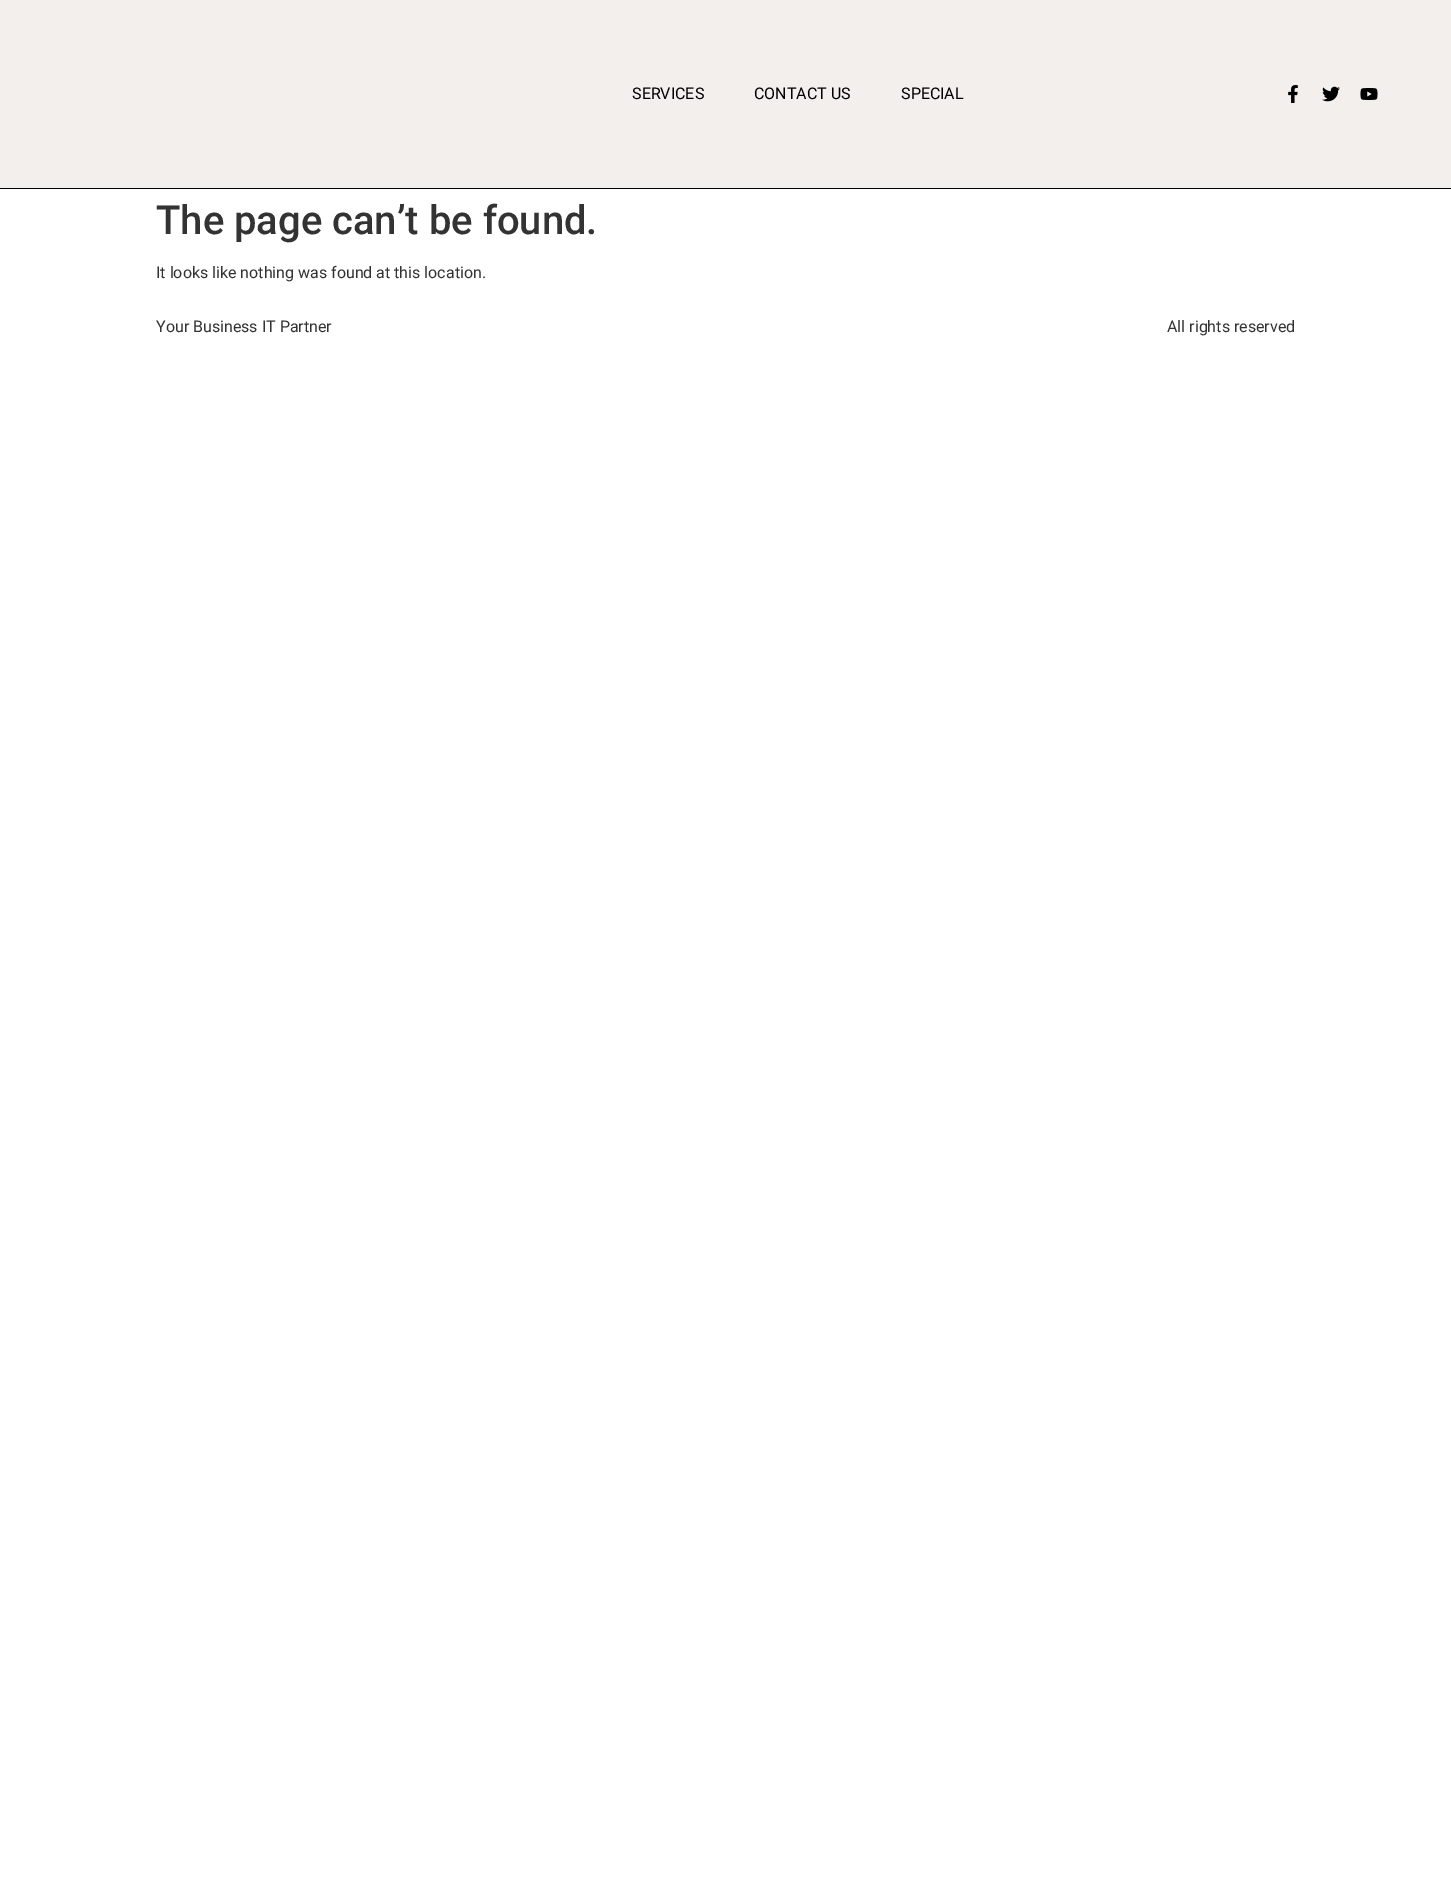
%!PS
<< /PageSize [1451 1887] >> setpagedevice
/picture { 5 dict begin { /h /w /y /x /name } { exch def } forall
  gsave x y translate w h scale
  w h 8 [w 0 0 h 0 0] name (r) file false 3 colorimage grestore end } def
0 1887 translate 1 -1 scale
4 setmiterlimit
1 setgray
0 0 1451 1887 rectfill
0.949 0.937 0.925 setrgbcolor
0 0 1451 188 rectfill
0 setgray
0 188 1451 1 rectfill
/Roboto-Regular [16 0 0 -16 0 0] selectfont
632 99 moveto (SERVICES) show
754 99 moveto (CONTACT US) show
901 99 moveto (SPECIAL) show
(img1.rgb) 1288 85 10 18 picture
(img2.rgb) 1322 86 18 16 picture
(img3.rgb) 1360 88 18 12 picture
/Roboto-Medium [40 0 0 -40 0 0] selectfont
0.2 setgray
156 234 moveto (The page can’t be found.) show
/Roboto-Regular [16 0 0 -16 0 0] selectfont
156 278 moveto (It looks like nothing was found at this location.) show
156 332 moveto (Your Business IT Partner) show
1167 332 moveto (All rights reserved) show
showpage
